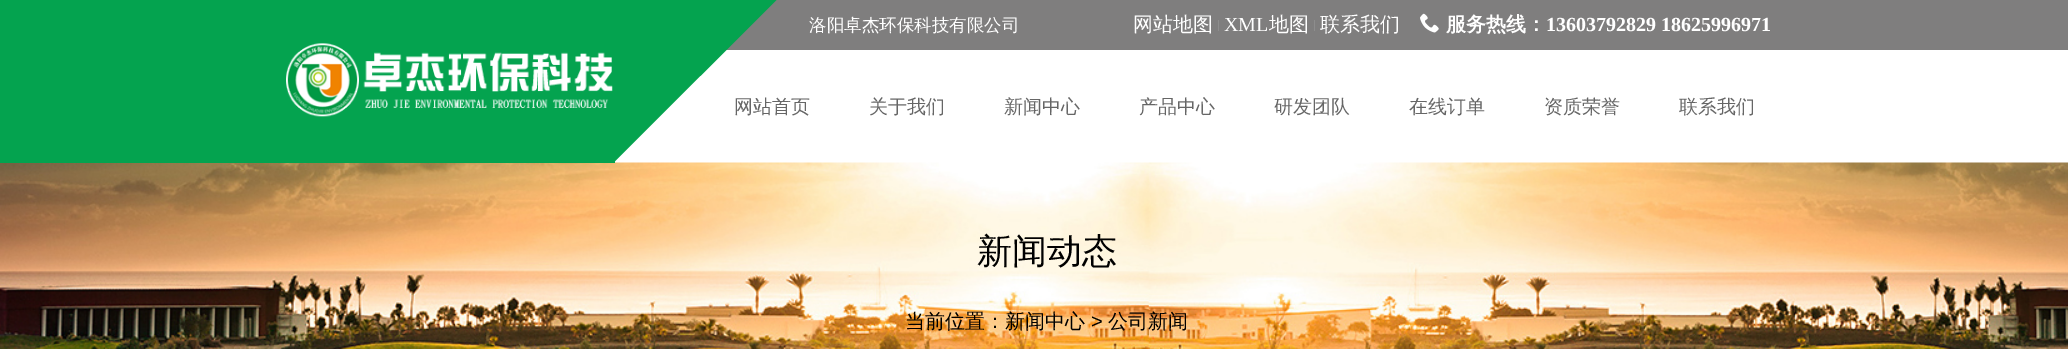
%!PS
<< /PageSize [2068 349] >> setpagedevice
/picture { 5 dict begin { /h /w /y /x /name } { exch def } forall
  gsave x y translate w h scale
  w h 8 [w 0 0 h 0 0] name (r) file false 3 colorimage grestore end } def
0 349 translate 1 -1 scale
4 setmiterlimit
1 setgray
0 0 2068 349 rectfill
0.498 0.494 0.494 setrgbcolor
726 0 1342 50 rectfill
/WenQuanYiZenHei-Medium [17.5 0 0 -17.5 0 0] selectfont
1 setgray
809 31 moveto (洛阳卓杰环保科技有限公司) show
/WenQuanYiZenHei-Medium [20 0 0 -20 0 0] selectfont
1133 31 moveto (网站地图) show
0.553 setgray
1218 20 1 11 rectfill
/LiberationSerif-Regular [20 0 0 -20 0 0] selectfont
1 setgray
1224 31 moveto (XML) show
/WenQuanYiZenHei-Medium [20 0 0 -20 0 0] selectfont
1269 31 moveto (地图) show
0.553 setgray
1314 20 1 11 rectfill
1 setgray
1320 31 moveto (联系我们) show
(img1.rgb) 1420 13 19 20 picture
/WenQuanYiZenHei-Bold [20 0 0 -20 0 0] selectfont
1446 31 moveto (服务热线：) show
/LiberationSerif-Bold [20 0 0 -20 0 0] selectfont
1546 31 moveto (13603792829 18625996971) show
(img3.rgb) 0 162 2068 187 picture
0.016 0.639 0.31 setrgbcolor
0 0 615 163 rectfill
/WenQuanYiZenHei-Medium [19 0 0 -19 0 0] selectfont
0.4 setgray
734 113 moveto (网站首页) show
0.016 0.639 0.31 setrgbcolor
newpath 844 -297 moveto 959 -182 lineto 614 162 lineto 499 48 lineto closepath fill
(img2.rgb) 286 43 327 74 picture
0.4 setgray
869 113 moveto (关于我们) show
1004 113 moveto (新闻中心) show
1139 113 moveto (产品中心) show
1274 113 moveto (研发团队) show
1409 113 moveto (在线订单) show
1544 113 moveto (资质荣誉) show
1679 113 moveto (联系我们) show
/WenQuanYiZenHei-Medium [35 0 0 -35 0 0] selectfont
0 setgray
977 263 moveto (新闻动态) show
/WenQuanYiZenHei-Medium [20 0 0 -20 0 0] selectfont
905 328 moveto (当前位置：新闻中心) show
/LiberationSans-Regular [20 0 0 -20 0 0] selectfont
1091 328 moveto (>) show
/WenQuanYiZenHei-Medium [20 0 0 -20 0 0] selectfont
1108 328 moveto (公司新闻) show
showpage
